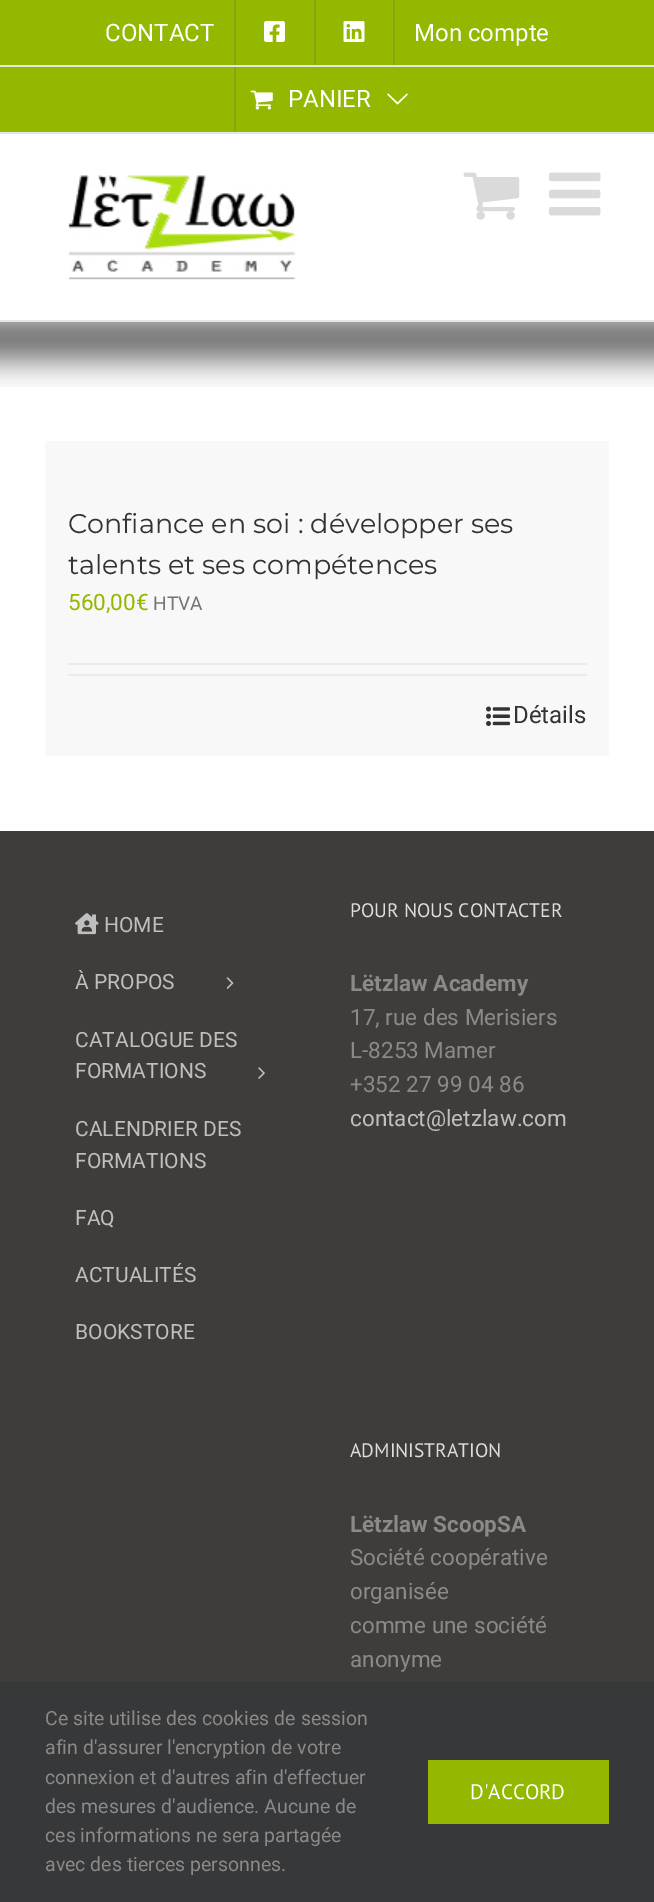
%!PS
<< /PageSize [654 1902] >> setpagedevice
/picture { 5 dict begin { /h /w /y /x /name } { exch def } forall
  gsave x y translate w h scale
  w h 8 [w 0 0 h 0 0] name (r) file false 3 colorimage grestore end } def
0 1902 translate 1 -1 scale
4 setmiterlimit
1 setgray
0 0 654 1902 rectfill
0.58 0.718 0 setrgbcolor
0 0 654 132 rectfill
0.898 setgray
0 132 654 2 rectfill
/Roboto-Regular [24 0 0 -24 0 0] selectfont
1 setgray
105 41 moveto (CONTACT) show
0.537 0.647 0.067 setrgbcolor
234 0 2 132 rectfill
(img1.rgb) 264 21 21 21 picture
314 0 2 66 rectfill
(img2.rgb) 343 21 22 21 picture
393 0 2 66 rectfill
1 setgray
414 41 moveto (Mon compte) show
0.898 setgray
0 65 654 2 rectfill
(img3.rgb) 250 90 23 20 picture
1 setgray
288 107 moveto (PANIER) show
(img4.rgb) 387 93 21 12 picture
0.898 setgray
0 320 654 2 rectfill
(img5.rgb) 68 175 228 105 picture
(img6.rgb) 463 172 57 48 picture
(img7.rgb) 549 172 52 44 picture
(img8.rgb) 0 322 654 65 picture
0.973 setgray
45 441 564 315 rectfill
/Montserrat-Thin [27 0 0 -27 0 0] selectfont
0.2 setgray
68 533 moveto (Confiance en soi : développer ses) show
68 574 moveto (talents et ses compétences) show
/Roboto-Regular [22.5 0 0 -22.5 0 0] selectfont
0.58 0.718 0 setrgbcolor
68 610 moveto (560,00€) show
/Roboto-Regular [19 0 0 -19 0 0] selectfont
0.455 setgray
153 610 moveto (HTVA) show
0.922 0.918 0.918 setrgbcolor
68 663 519 2 rectfill
68 674 519 2 rectfill
(img9.rgb) 486 706 24 20 picture
/Roboto-Regular [24 0 0 -24 0 0] selectfont
0.2 setgray
513 723 moveto (Détails) show
0.247 0.239 0.227 setrgbcolor
0 831 654 851 rectfill
(img10.rgb) 75 913 24 22 picture
/Roboto-Regular [21 0 0 -21 0 0] selectfont
0.749 setgray
104 932 moveto (HOME) show
75 989 moveto (À PROPOS) show
(img11.rgb) 226 977 8 12 picture
75 1047 moveto (CATALOGUE DES) show
75 1078 moveto (FORMATIONS) show
(img12.rgb) 258 1067 7 12 picture
75 1136 moveto (CALENDRIER DES) show
75 1168 moveto (FORMATIONS) show
75 1225 moveto (FAQ) show
75 1282 moveto (ACTUALITÉS) show
75 1339 moveto (BOOKSTORE) show
/PTSans-Regular [19.5 0 0 -19.5 0 0] selectfont
0.867 setgray
350 917 moveto (POUR NOUS CONTACTER) show
/Roboto-Bold [22.5 0 0 -22.5 0 0] selectfont
0.549 0.537 0.537 setrgbcolor
350 991 moveto (Lëtzlaw Academy) show
/Roboto-Regular [22.5 0 0 -22.5 0 0] selectfont
350 1025 moveto (17, rue des Merisiers) show
350 1058 moveto (L-8253 Mamer) show
350 1092 moveto (+352 27 99 04 86) show
0.749 setgray
350 1126 moveto (contact@letzlaw.com) show
/PTSans-Regular [19.5 0 0 -19.5 0 0] selectfont
0.867 setgray
350 1457 moveto (ADMINISTRATION) show
/Roboto-Bold [22.5 0 0 -22.5 0 0] selectfont
0.549 0.537 0.537 setrgbcolor
350 1532 moveto (Lëtzlaw ScoopSA) show
/Roboto-Regular [22.5 0 0 -22.5 0 0] selectfont
350 1565 moveto (Société coopérative) show
350 1599 moveto (organisée) show
350 1633 moveto (comme une société) show
350 1667 moveto (anonyme) show
0.212 0.22 0.224 setrgbcolor
0 1682 654 220 rectfill
/Roboto-Regular [19.5 0 0 -19.5 0 0] selectfont
0.549 0.537 0.537 setrgbcolor
45 1725 moveto (Ce site utilise des cookies de session) show
45 1754 moveto (afin d'assurer l'encryption de votre) show
45 1784 moveto (connexion et d'autres afin d'effectuer) show
45 1813 moveto (des mesures d'audience. Aucune de) show
45 1842 moveto (ces informations ne sera partagée) show
45 1871 moveto (avec des tierces personnes.) show
0.58 0.718 0 setrgbcolor
428 1760 181 64 rectfill
/PTSans-Regular [21 0 0 -21 0 0] selectfont
1 setgray
470 1799 moveto (D'ACCORD) show
showpage
